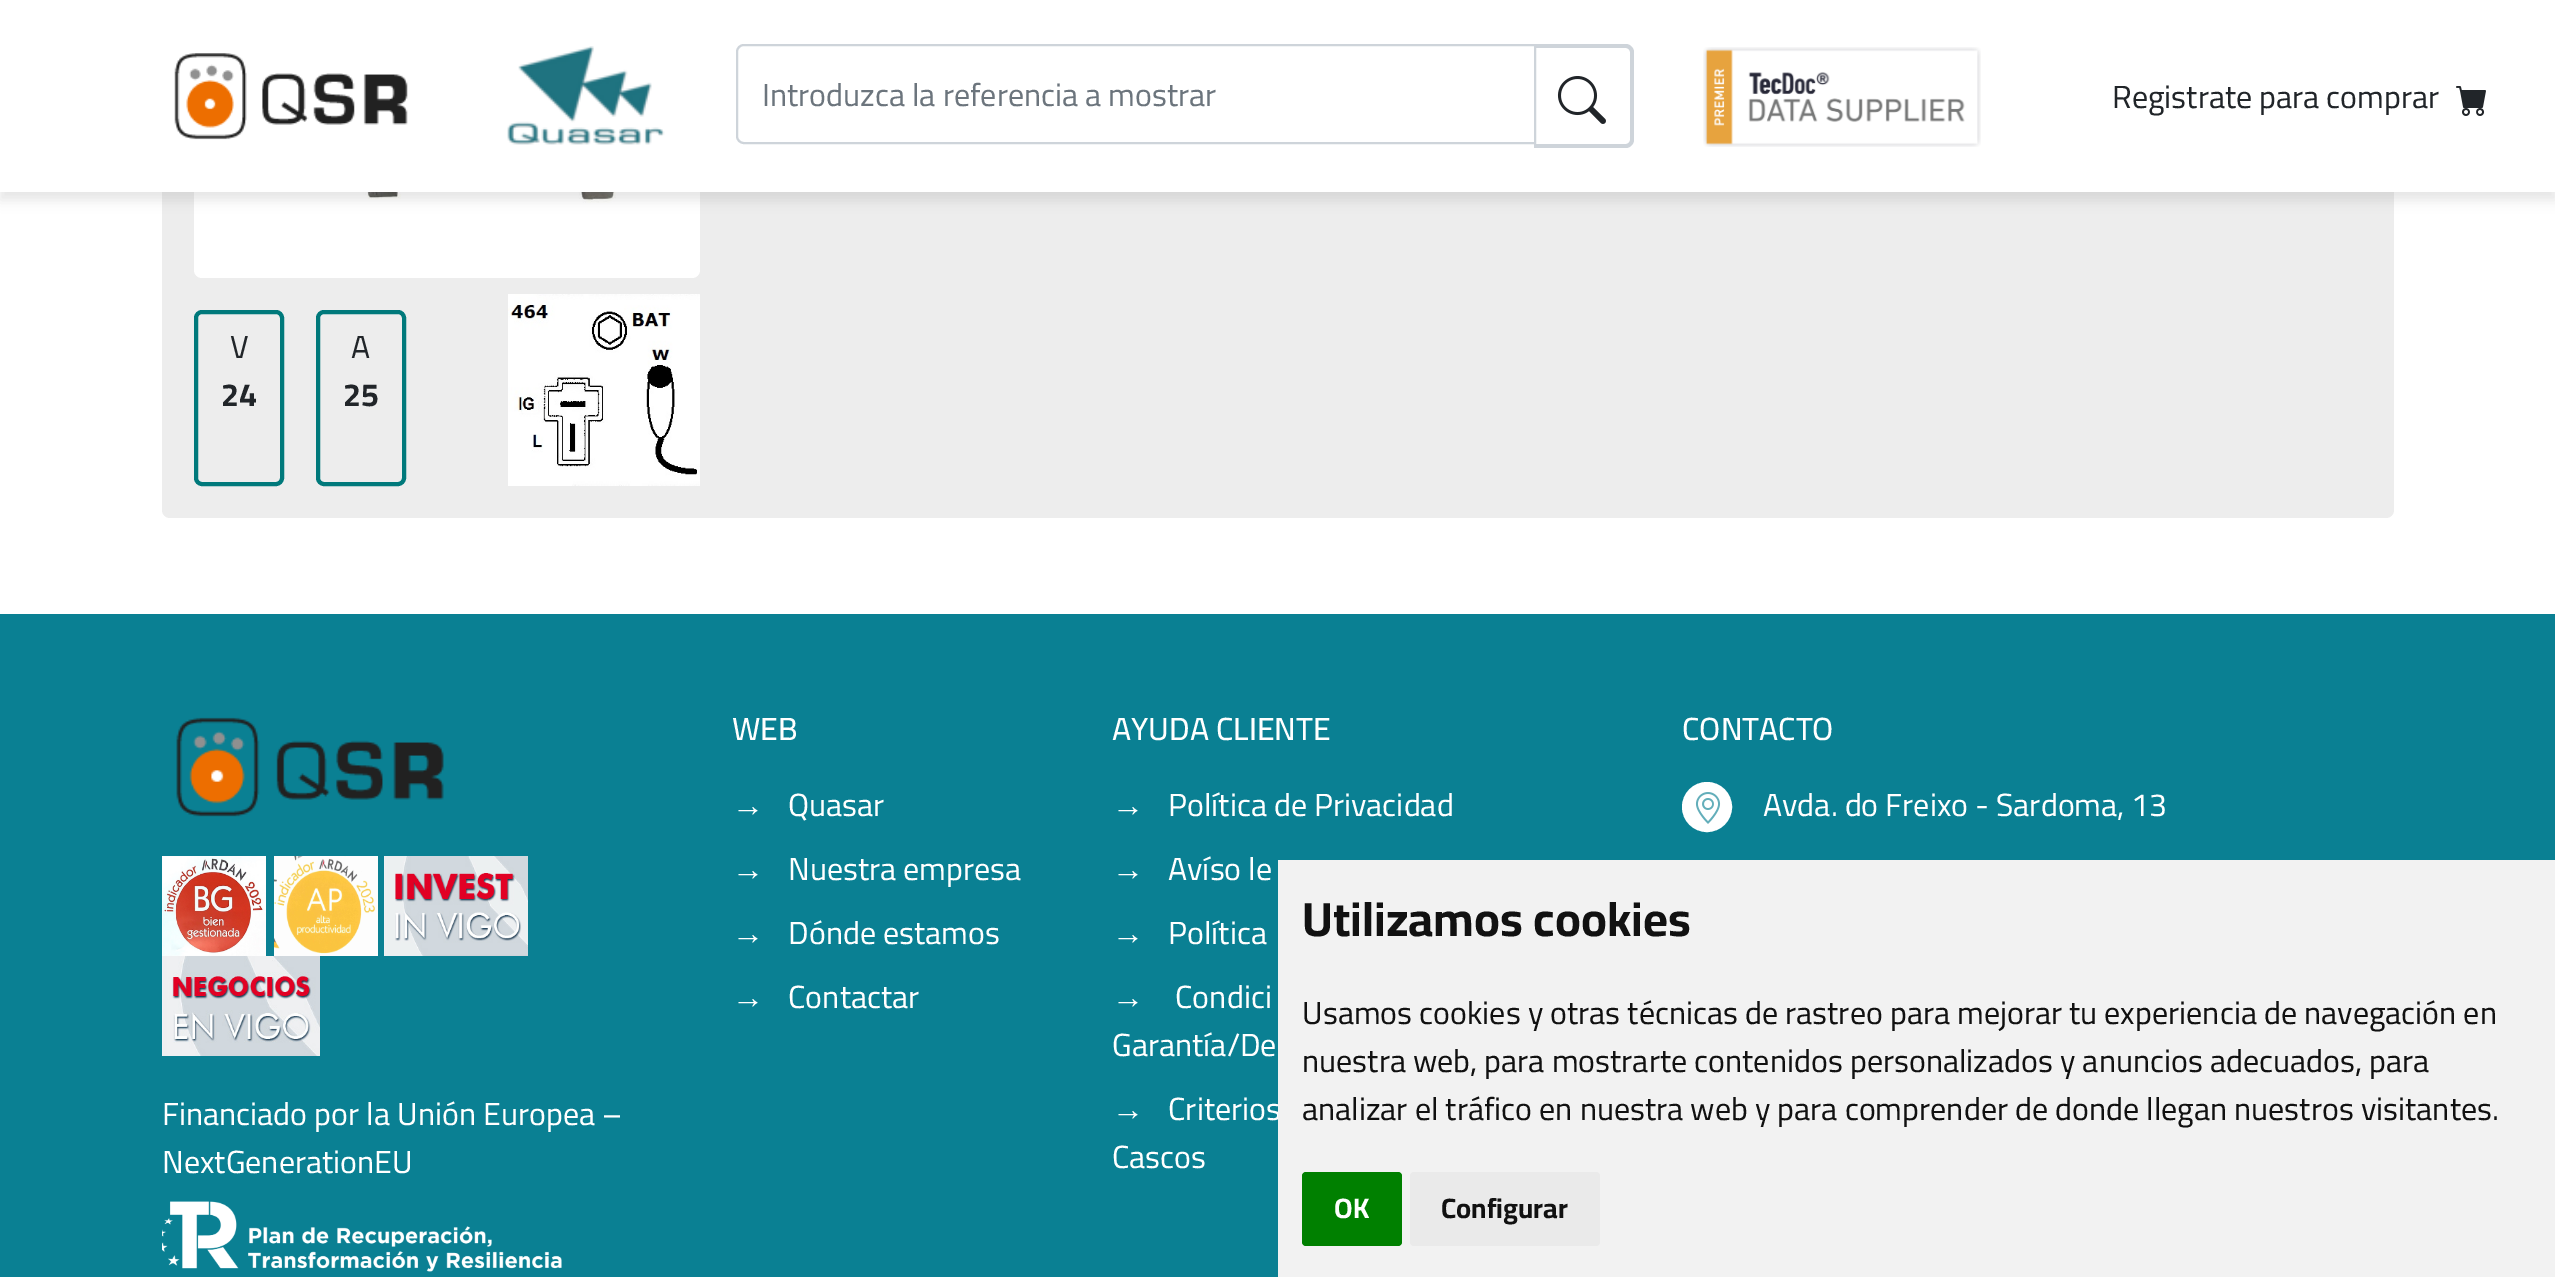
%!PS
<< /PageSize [2555 1277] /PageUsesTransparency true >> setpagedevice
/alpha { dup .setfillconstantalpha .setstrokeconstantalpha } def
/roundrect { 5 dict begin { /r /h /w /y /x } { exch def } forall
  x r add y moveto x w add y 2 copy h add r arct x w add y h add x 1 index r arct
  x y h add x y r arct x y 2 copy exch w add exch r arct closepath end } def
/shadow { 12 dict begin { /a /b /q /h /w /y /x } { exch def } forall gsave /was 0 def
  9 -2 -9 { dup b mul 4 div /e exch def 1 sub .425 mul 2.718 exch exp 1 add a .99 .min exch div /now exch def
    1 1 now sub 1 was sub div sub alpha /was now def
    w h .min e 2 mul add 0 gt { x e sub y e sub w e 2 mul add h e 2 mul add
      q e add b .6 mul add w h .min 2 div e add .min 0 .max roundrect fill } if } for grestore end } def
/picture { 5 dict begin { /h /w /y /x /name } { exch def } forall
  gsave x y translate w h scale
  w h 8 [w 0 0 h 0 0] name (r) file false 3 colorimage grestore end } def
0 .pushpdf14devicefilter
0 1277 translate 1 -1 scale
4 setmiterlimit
1 setgray
0 0 2555 1277 rectfill
0.929 setgray
162 -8 2232 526 8 roundrect fill
1 setgray
194 -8 506 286 8 roundrect fill
(img6.rgb) 223 192 417 11 picture
0 setgray
0 8 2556 192 0 6 0.1 shadow
1 setgray
0 0 2555 192 rectfill
(img1.rgb) 174 53 234 87 picture
(img2.rgb) 507 46 158 99 picture
0.808 0.831 0.855 setrgbcolor
newpath 1534 44 moveto 1626 44 lineto 1630 44 1634 48 1634 52 curveto 1634 140 lineto 1634 144 1630 148 1626 148 curveto 1534 148 lineto closepath 1534 48 moveto 1626 48 lineto 1628 48 1630 50 1630 52 curveto 1630 140 lineto 1630 142 1628 144 1626 144 curveto 1534 144 lineto closepath eofill
2 setlinewidth
newpath 744 45 moveto 1535 45 lineto 1535 143 lineto 744 143 lineto 740 143 737 140 737 136 curveto 737 52 lineto 737 48 740 45 744 45 curveto closepath stroke
/Cairo-Regular [32 0 0 -32 0 0] selectfont
0.424 0.459 0.49 setrgbcolor
762 106 moveto (Introduzca la referencia a mostrar) show
(img3.rgb) 1557 76 49 48 picture
(img4.rgb) 1703 47 278 100 picture
0.129 0.145 0.161 setrgbcolor
2112 108 moveto (Registrate para comprar) show
(img5.rgb) 2456 86 30 30 picture
0 0.475 0.482 setrgbcolor
4 setlinewidth
196 312 86 172 6 roundrect stroke
0.129 0.145 0.161 setrgbcolor
230 358 moveto (V) show
/Cairo-Bold [32 0 0 -32 0 0] selectfont
221 406 moveto (24) show
0 0.475 0.482 setrgbcolor
318 312 86 172 6 roundrect stroke
/Cairo-Regular [32 0 0 -32 0 0] selectfont
0.129 0.145 0.161 setrgbcolor
351 358 moveto (A) show
/Cairo-Bold [32 0 0 -32 0 0] selectfont
343 406 moveto (25) show
(img7.rgb) 508 294 192 192 picture
0.039 0.502 0.576 setrgbcolor
0 614 2555 663 rectfill
/Cairo-Medium [32 0 0 -32 0 0] selectfont
1 setgray
732 740 moveto (WEB) show
/LiberationSans-Regular [32 0 0 -32 0 0] selectfont
732 816 moveto (→) show
/Cairo-Regular [32 0 0 -32 0 0] selectfont
788 816 moveto (Quasar) show
/LiberationSans-Regular [32 0 0 -32 0 0] selectfont
732 880 moveto (→) show
/Cairo-Regular [32 0 0 -32 0 0] selectfont
788 880 moveto (Nuestra empresa) show
/LiberationSans-Regular [32 0 0 -32 0 0] selectfont
732 944 moveto (→) show
/Cairo-Regular [32 0 0 -32 0 0] selectfont
788 944 moveto (Dónde estamos) show
/LiberationSans-Regular [32 0 0 -32 0 0] selectfont
732 1008 moveto (→) show
/Cairo-Regular [32 0 0 -32 0 0] selectfont
788 1008 moveto (Contactar) show
/Cairo-Medium [32 0 0 -32 0 0] selectfont
1112 740 moveto (AYUDA CLIENTE) show
/LiberationSans-Regular [32 0 0 -32 0 0] selectfont
1112 816 moveto (→) show
/Cairo-Regular [32 0 0 -32 0 0] selectfont
1168 816 moveto (Política de Privacidad) show
/LiberationSans-Regular [32 0 0 -32 0 0] selectfont
1112 880 moveto (→) show
/Cairo-Regular [32 0 0 -32 0 0] selectfont
1168 880 moveto (Avíso le) show
/LiberationSans-Regular [32 0 0 -32 0 0] selectfont
1112 944 moveto (→) show
/Cairo-Regular [32 0 0 -32 0 0] selectfont
1168 944 moveto (Política) show
/LiberationSans-Regular [32 0 0 -32 0 0] selectfont
1112 1008 moveto (→) show
/Cairo-Regular [32 0 0 -32 0 0] selectfont
1175 1008 moveto (Condici) show
1112 1056 moveto (Garantía/De) show
/LiberationSans-Regular [32 0 0 -32 0 0] selectfont
1112 1120 moveto (→) show
/Cairo-Regular [32 0 0 -32 0 0] selectfont
1168 1120 moveto (Criterios) show
1112 1168 moveto (Cascos) show
/Cairo-Medium [32 0 0 -32 0 0] selectfont
1682 740 moveto (CONTACTO) show
newpath 1707 807 24 0 360 arc closepath gsave fill grestore
2 setlinewidth
stroke
(img8.rgb) 1695 792 26 32 picture
/Cairo-Regular [32 0 0 -32 0 0] selectfont
1763 816 moveto (Avda. do Freixo - Sardoma, 13) show
(img9.rgb) 176 717 268 100 picture
(img10.rgb) 162 856 104 100 picture
(img11.rgb) 274 856 104 100 picture
(img12.rgb) 384 856 144 100 picture
(img13.rgb) 162 956 158 100 picture
162 1125 moveto (Financiado por la Unión Europea –) show
162 1173 moveto (NextGenerationEU) show
(img14.rgb) 162 1201 400 71 picture
0.949 setgray
1278 860 1277 417 rectfill
/Cairo-Bold [48 0 0 -48 0 0] selectfont
0.067 setgray
1302 936 moveto (Utilizamos cookies) show
/Cairo-Regular [32 0 0 -32 0 0] selectfont
1302 1024 moveto (Usamos cookies y otras técnicas de rastreo para mejorar tu experiencia de navegación en) show
1302 1072 moveto (nuestra web, para mostrarte contenidos personalizados y anuncios adecuados, para) show
1302 1120 moveto (analizar el tráfico en nuestra web y para comprender de donde llegan nuestros visitantes.) show
0 0.502 0 setrgbcolor
1302 1172 100 74 4 roundrect fill
/Cairo-Bold [28 0 0 -28 0 0] selectfont
1 setgray
1334 1218 moveto (OK) show
0.918 setgray
1410 1172 190 74 4 roundrect fill
0.067 setgray
1441 1218 moveto (Configurar) show
.poppdf14devicefilter showpage
